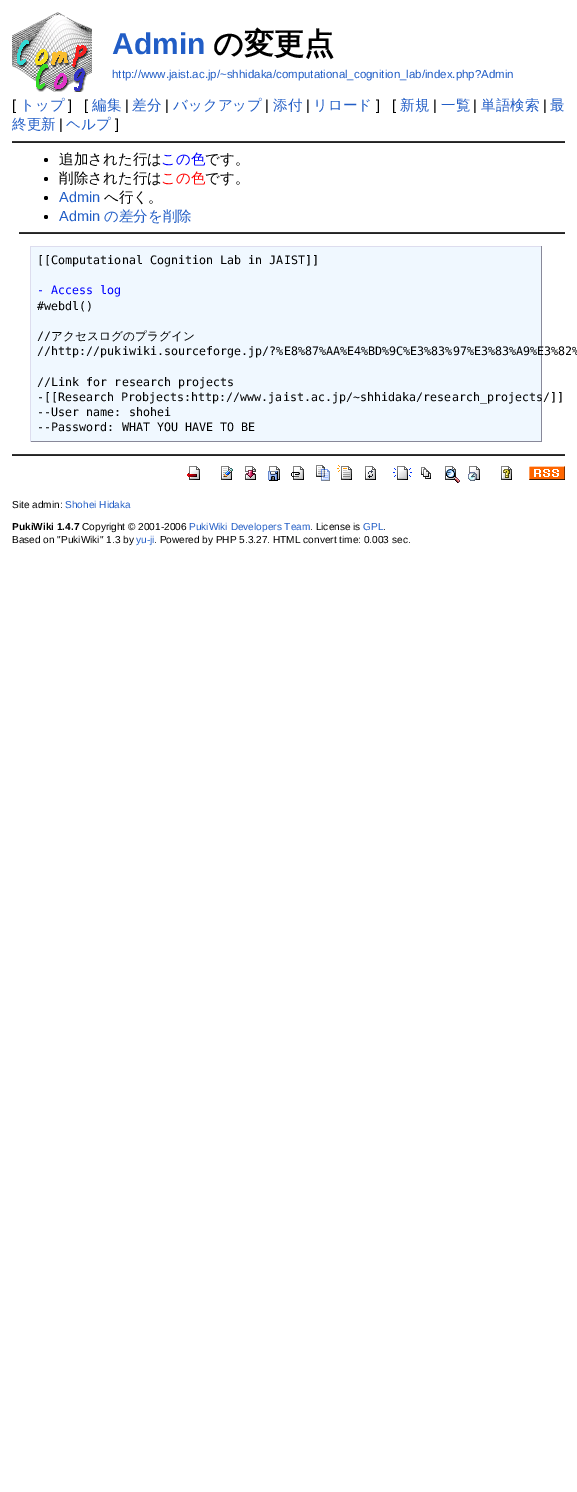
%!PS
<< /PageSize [577 1492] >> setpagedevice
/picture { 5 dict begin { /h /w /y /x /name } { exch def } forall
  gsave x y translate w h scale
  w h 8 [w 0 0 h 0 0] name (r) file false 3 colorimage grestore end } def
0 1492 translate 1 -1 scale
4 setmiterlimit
1 setgray
0 0 577 1492 rectfill
(img1.rgb) 12 12 80 80 picture
/LiberationSans-Bold [30 0 0 -30 0 0] selectfont
0.129 0.365 0.776 setrgbcolor
112 54 moveto (Admin) show
/WenQuanYiZenHei-Bold [30 0 0 -30 0 0] selectfont
0 setgray
213 54 moveto (の変更点) show
/LiberationSans-Regular [11.5 0 0 -11.5 0 0] selectfont
0.129 0.365 0.776 setrgbcolor
112 78 moveto (http://www.jaist.ac.jp/~shhidaka/computational_cognition_lab/index.php?Admin) show
/LiberationSans-Regular [14.5 0 0 -14.5 0 0] selectfont
0 setgray
12 110 moveto ([) show
/WenQuanYiZenHei-Medium [14.5 0 0 -14.5 0 0] selectfont
0.129 0.365 0.776 setrgbcolor
20 110 moveto (トップ) show
/LiberationSans-Regular [14.5 0 0 -14.5 0 0] selectfont
0 setgray
68 110 moveto (]) show
84 110 moveto ([) show
/WenQuanYiZenHei-Medium [14.5 0 0 -14.5 0 0] selectfont
0.129 0.365 0.776 setrgbcolor
92 110 moveto (編集) show
/LiberationSans-Regular [14.5 0 0 -14.5 0 0] selectfont
0 setgray
125 110 moveto (|) show
/WenQuanYiZenHei-Medium [14.5 0 0 -14.5 0 0] selectfont
0.129 0.365 0.776 setrgbcolor
132 110 moveto (差分) show
/LiberationSans-Regular [14.5 0 0 -14.5 0 0] selectfont
0 setgray
165 110 moveto (|) show
/WenQuanYiZenHei-Medium [14.5 0 0 -14.5 0 0] selectfont
0.129 0.365 0.776 setrgbcolor
173 110 moveto (バックアップ) show
/LiberationSans-Regular [14.5 0 0 -14.5 0 0] selectfont
0 setgray
265 110 moveto (|) show
/WenQuanYiZenHei-Medium [14.5 0 0 -14.5 0 0] selectfont
0.129 0.365 0.776 setrgbcolor
273 110 moveto (添付) show
/LiberationSans-Regular [14.5 0 0 -14.5 0 0] selectfont
0 setgray
306 110 moveto (|) show
/WenQuanYiZenHei-Medium [14.5 0 0 -14.5 0 0] selectfont
0.129 0.365 0.776 setrgbcolor
313 110 moveto (リロード) show
/LiberationSans-Regular [14.5 0 0 -14.5 0 0] selectfont
0 setgray
376 110 moveto (]) show
392 110 moveto ([) show
/WenQuanYiZenHei-Medium [14.5 0 0 -14.5 0 0] selectfont
0.129 0.365 0.776 setrgbcolor
400 110 moveto (新規) show
/LiberationSans-Regular [14.5 0 0 -14.5 0 0] selectfont
0 setgray
433 110 moveto (|) show
/WenQuanYiZenHei-Medium [14.5 0 0 -14.5 0 0] selectfont
0.129 0.365 0.776 setrgbcolor
441 110 moveto (一覧) show
/LiberationSans-Regular [14.5 0 0 -14.5 0 0] selectfont
0 setgray
473 110 moveto (|) show
/WenQuanYiZenHei-Medium [14.5 0 0 -14.5 0 0] selectfont
0.129 0.365 0.776 setrgbcolor
481 110 moveto (単語検索) show
/LiberationSans-Regular [14.5 0 0 -14.5 0 0] selectfont
0 setgray
543 110 moveto (|) show
/WenQuanYiZenHei-Medium [14.5 0 0 -14.5 0 0] selectfont
0.129 0.365 0.776 setrgbcolor
550 110 moveto (最) show
12 129 moveto (終更新) show
/LiberationSans-Regular [14.5 0 0 -14.5 0 0] selectfont
0 setgray
59 129 moveto (|) show
/WenQuanYiZenHei-Medium [14.5 0 0 -14.5 0 0] selectfont
0.129 0.365 0.776 setrgbcolor
66 129 moveto (ヘルプ) show
/LiberationSans-Regular [14.5 0 0 -14.5 0 0] selectfont
0 setgray
115 129 moveto (]) show
0.2 setgray
12 141 553 1 rectfill
0.133 setgray
12 142 553 1 rectfill
0 setgray
newpath 46 160 2 0 360 arc closepath fill
/WenQuanYiZenHei-Medium [14.5 0 0 -14.5 0 0] selectfont
59 164 moveto (追加された行は) show
0 0 1 setrgbcolor
161 164 moveto (この色) show
0 setgray
205 164 moveto (です。) show
newpath 46 179 2 0 360 arc closepath fill
59 183 moveto (削除された行は) show
1 0 0 setrgbcolor
161 183 moveto (この色) show
0 setgray
205 183 moveto (です。) show
newpath 46 198 2 0 360 arc closepath fill
/LiberationSans-Regular [14.5 0 0 -14.5 0 0] selectfont
0.129 0.365 0.776 setrgbcolor
59 202 moveto (Admin) show
/WenQuanYiZenHei-Medium [14.5 0 0 -14.5 0 0] selectfont
0 setgray
104 202 moveto (へ行く。) show
newpath 46 217 2 0 360 arc closepath fill
/LiberationSans-Regular [14.5 0 0 -14.5 0 0] selectfont
0.129 0.365 0.776 setrgbcolor
59 221 moveto (Admin) show
/WenQuanYiZenHei-Medium [14.5 0 0 -14.5 0 0] selectfont
104 221 moveto (の差分を削除) show
0.2 setgray
19 232 546 1 rectfill
0.133 setgray
19 233 546 1 rectfill
0.941 0.973 1 setrgbcolor
31 247 510 194 rectfill
0.867 0.867 0.933 setrgbcolor
30 246 512 1 rectfill
0.533 0.533 0.6 setrgbcolor
541 246 1 196 rectfill
30 441 512 1 rectfill
0.867 0.867 0.933 setrgbcolor
30 246 1 196 rectfill
/DejaVuSansMono-Regular [11.7 0 0 -11.7 0 0] selectfont
0 setgray
37 264 moveto ([[Computational Cognition Lab in JAIST]]) show
0 0 1 setrgbcolor
37 294 moveto (- Access log) show
0 setgray
37 310 moveto (#webdl\(\)) show
37 340 moveto (//) show
/WenQuanYiZenHei-Medium [11.7 0 0 -11.7 0 0] selectfont
51 340 moveto (アクセスログのプラグイン) show
/DejaVuSansMono-Regular [11.7 0 0 -11.7 0 0] selectfont
37 355 moveto (//http://pukiwiki.sourceforge.jp/?%E8%87%AA%E4%BD%9C%E3%83%97%E3%83%A9%E3%82%) show
37 386 moveto (//Link for research projects) show
37 401 moveto -1 0 32 (-[[Research Probjects:http://www.jaist.ac.jp/~shhidaka/research_projects/]]) widthshow
37 416 moveto (--User name: shohei) show
37 431 moveto (--Password: WHAT YOU HAVE TO BE) show
0.2 setgray
12 454 553 1 rectfill
0.133 setgray
12 455 553 1 rectfill
(img2.rgb) 187 466 13 14 picture
(img3.rgb) 221 466 12 14 picture
(img4.rgb) 245 466 11 14 picture
(img5.rgb) 268 466 12 15 picture
(img6.rgb) 291 466 13 14 picture
(img7.rgb) 316 465 14 16 picture
(img8.rgb) 337 465 15 15 picture
(img9.rgb) 365 466 11 14 picture
(img10.rgb) 393 466 19 14 picture
(img11.rgb) 421 467 10 12 picture
(img12.rgb) 445 466 15 17 picture
(img13.rgb) 468 466 12 15 picture
(img14.rgb) 501 466 11 14 picture
(img15.rgb) 529 466 36 14 picture
/LiberationSans-Regular [10.1 0 0 -10.1 0 0] selectfont
0 setgray
12 508 moveto (Site admin:) show
0.129 0.365 0.776 setrgbcolor
65 508 moveto (Shohei Hidaka) show
/LiberationSans-Bold [10.1 0 0 -10.1 0 0] selectfont
0 setgray
12 530 moveto (PukiWiki 1.4.7) show
/LiberationSans-Regular [10.1 0 0 -10.1 0 0] selectfont
82 530 moveto (Copyright © 2001-2006) show
0.129 0.365 0.776 setrgbcolor
189 530 moveto (PukiWiki Developers Team) show
0 setgray
310 530 moveto (. License is) show
0.129 0.365 0.776 setrgbcolor
363 530 moveto (GPL) show
0 setgray
383 530 moveto (.) show
12 543 moveto (Based on "PukiWiki" 1.3 by) show
0.129 0.365 0.776 setrgbcolor
136 543 moveto (yu-ji) show
0 setgray
154 543 moveto (. Powered by PHP 5.3.27. HTML convert time: 0.003 sec.) show
showpage
